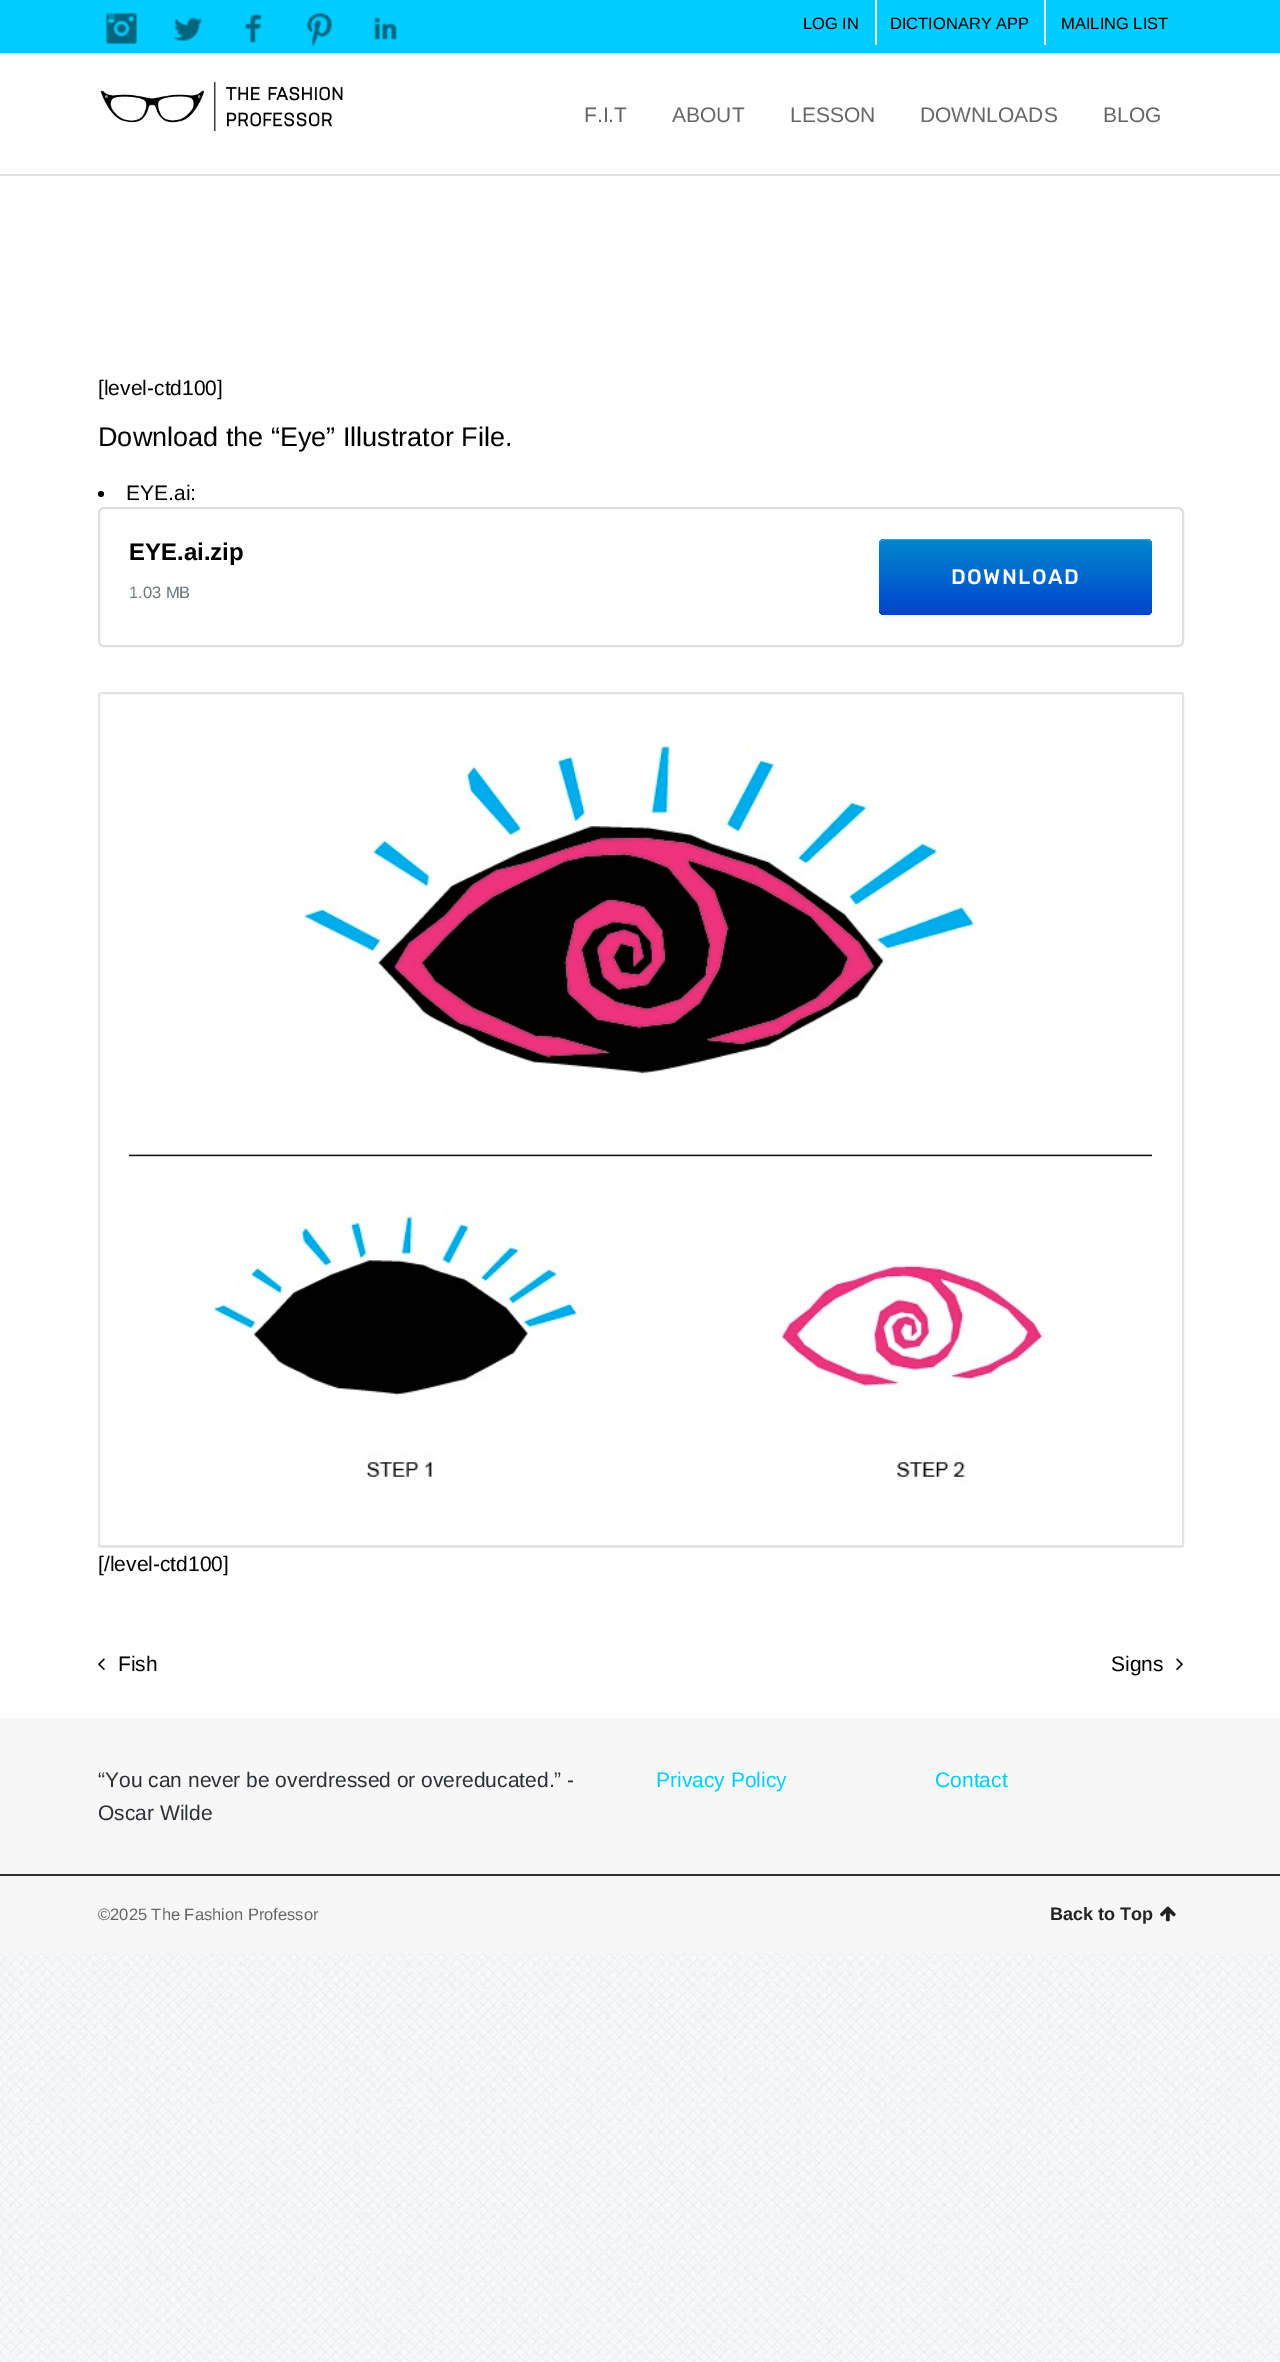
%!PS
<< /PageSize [1280 2362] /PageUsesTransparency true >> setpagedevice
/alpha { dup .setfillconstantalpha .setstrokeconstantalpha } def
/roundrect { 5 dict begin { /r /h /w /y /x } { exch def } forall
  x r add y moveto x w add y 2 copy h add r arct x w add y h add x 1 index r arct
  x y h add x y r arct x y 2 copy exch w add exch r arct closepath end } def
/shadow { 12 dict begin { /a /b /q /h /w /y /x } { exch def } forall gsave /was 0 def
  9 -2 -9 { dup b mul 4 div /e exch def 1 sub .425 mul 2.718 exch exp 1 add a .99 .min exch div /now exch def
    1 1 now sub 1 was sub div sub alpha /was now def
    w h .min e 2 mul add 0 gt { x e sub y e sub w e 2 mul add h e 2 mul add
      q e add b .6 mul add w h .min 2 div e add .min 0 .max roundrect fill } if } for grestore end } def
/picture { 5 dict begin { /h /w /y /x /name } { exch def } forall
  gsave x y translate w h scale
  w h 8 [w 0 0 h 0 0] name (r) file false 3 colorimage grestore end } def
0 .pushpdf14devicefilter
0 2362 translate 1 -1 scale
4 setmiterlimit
1 setgray
0 0 1280 2362 rectfill
(img1.rgb) 0 1953 1280 409 picture
0 0.8 1 setrgbcolor
0 0 1280 53 rectfill
0.894 setgray
0 53 1280 1 rectfill
(img2.rgb) 105 12 33 33 picture
(img3.rgb) 173 17 30 25 picture
(img4.rgb) 244 13 18 31 picture
(img5.rgb) 306 12 27 35 picture
(img6.rgb) 373 16 25 25 picture
/LiberationSans-Regular [16.5 0 0 -16.5 0 0] selectfont
0 setgray
803 29 moveto (LOG IN) show
0.894 setgray
875 0 2 45 rectfill
0 setgray
890 29 moveto (DICTIONARY APP) show
0.894 setgray
1044 0 2 45 rectfill
0 setgray
1061 29 moveto (MAILING LIST) show
0.894 setgray
0 174 1280 2 rectfill
(img7.rgb) 100 81 243 50 picture
/LiberationSans-Regular [21 0 0 -21 0 0] selectfont
0.4 setgray
584 122 moveto (F.I.T) show
672 122 moveto (ABOUT) show
790 122 moveto (LESSON) show
920 122 moveto (DOWNLOADS) show
1103 122 moveto (BLOG) show
0 setgray
98 395 moveto ([level-ctd100]) show
/LiberationSans-Regular [27 0 0 -27 0 0] selectfont
98 446 moveto (Download the “Eye” Illustrator File.) show
newpath 101 494 3 0 360 arc closepath fill
/LiberationSans-Regular [21 0 0 -21 0 0] selectfont
126 500 moveto (EYE.ai:) show
0.875 setgray
2 setlinewidth
99 508 1084 138 5 roundrect stroke
/LiberationSans-Bold [24 0 0 -24 0 0] selectfont
0 setgray
129 560 moveto (EYE.ai.zip) show
/LiberationSans-Regular [16.5 0 0 -16.5 0 0] selectfont
0.424 0.459 0.49 setrgbcolor
129 598 moveto (1.03 MB) show
0 setgray
879 540 273 77 6 1.5 0.05 shadow
gsave 879 539 273 76 6 roundrect clip newpath
<< /ShadingType 2 /ColorSpace /DeviceRGB /Coords [1016 539 1016 615] /Extend [true true] /Function << /FunctionType 2 /Domain [0 1] /C0 [0 0.533 0.8] /C1 [0 0.267 0.8] /N 1 >> >> shfill grestore
0.2 alpha
1 setgray
newpath 885 540 moveto 1146 540 lineto 1149 540 1152 543 1152 546 curveto 1152 545 lineto 1152 542 1149 539 1146 539 curveto 885 539 lineto 882 539 879 542 879 545 curveto 879 546 lineto 879 543 882 540 885 540 curveto closepath fill
/Rubik-Medium [21 0 0 -21 0 0] selectfont
1 alpha
951 584 moveto 1.5 0 (DOWNLOAD) ashow
0.902 setgray
newpath 98 1545 moveto 98 1547 99 1548 101 1548 curveto 1181 1548 lineto 1183 1548 1184 1547 1184 1545 curveto 1184 696 lineto 1183 694 lineto 1184 1544 lineto 1184 1545 1182 1546 1180 1546 curveto 100 1546 lineto 99 1546 99 1546 98 1545 curveto closepath fill
1 setgray
99 693 1084 853 2 roundrect gsave fill grestore
0.894 setgray
stroke
(img8.rgb) 129 744 1023 738 picture
/LiberationSans-Regular [21 0 0 -21 0 0] selectfont
0 setgray
98 1571 moveto ([/level-ctd100]) show
(img9.rgb) 98 1658 7 12 picture
118 1671 moveto (Fish) show
1111 1671 moveto (Signs) show
(img10.rgb) 1176 1658 7 12 picture
0.969 setgray
0 1718 1280 156 rectfill
0.176 0.184 0.212 setrgbcolor
98 1787 moveto (“You can never be overdressed or overeducated.” -) show
98 1820 moveto (Oscar Wilde) show
0 0.8 1 setrgbcolor
656 1787 moveto (Privacy Policy) show
935 1787 moveto (Contact) show
0.969 setgray
0 1876 1280 77 rectfill
0.2 setgray
0 1874 1280 2 rectfill
/LiberationSans-Regular [16.5 0 0 -16.5 0 0] selectfont
0.4 setgray
98 1920 moveto (©2025 The Fashion Professor) show
/LiberationSans-Bold [18 0 0 -18 0 0] selectfont
0.133 setgray
1050 1920 moveto (Back to Top) show
(img11.rgb) 1160 1906 16 16 picture
.poppdf14devicefilter showpage
